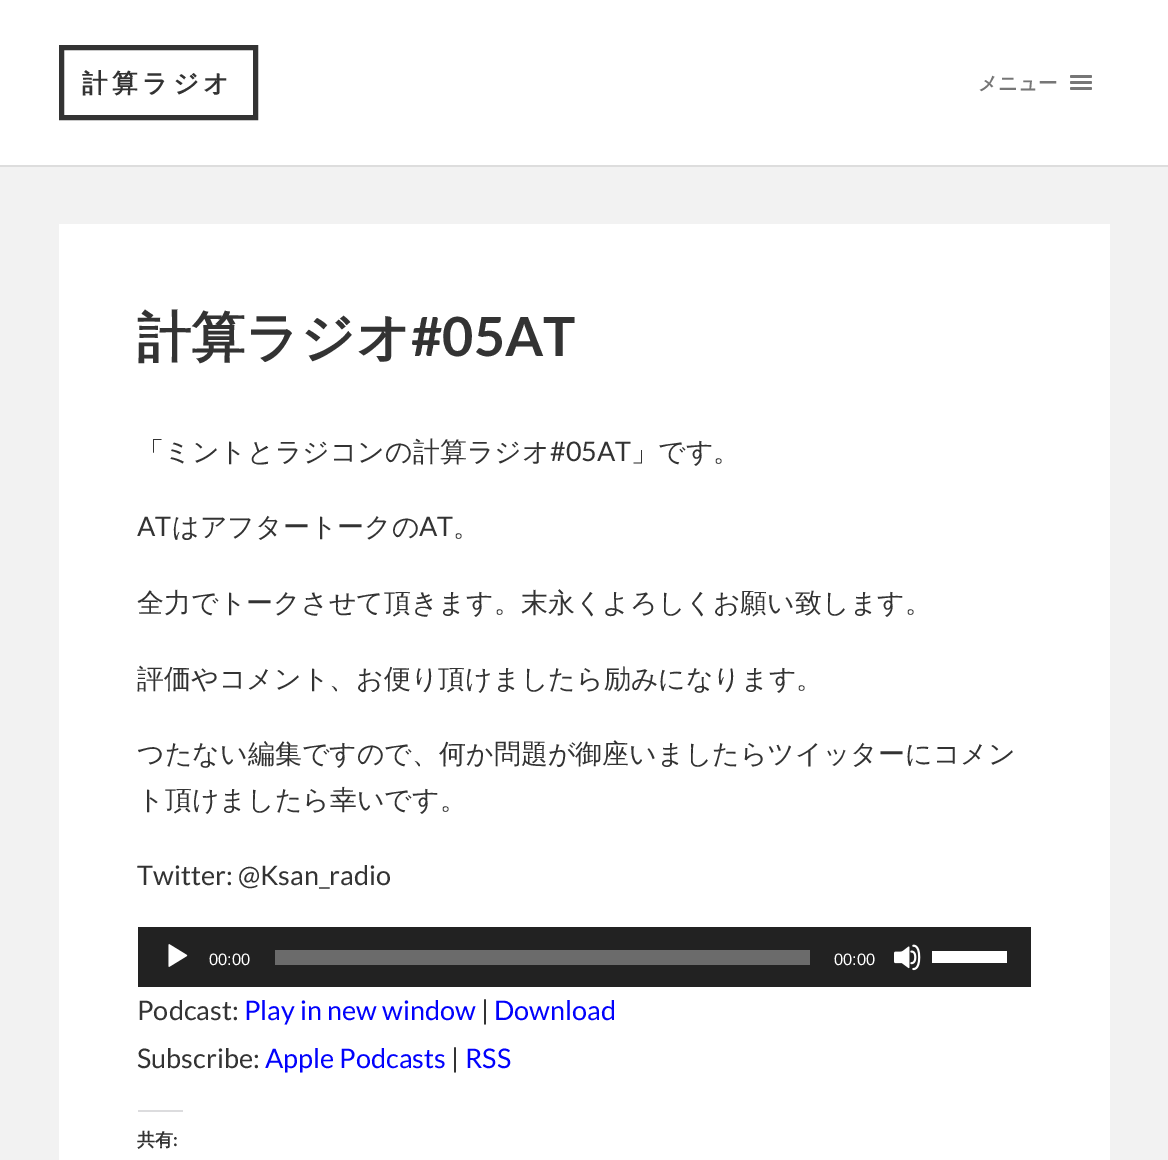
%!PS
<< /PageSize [1168 1160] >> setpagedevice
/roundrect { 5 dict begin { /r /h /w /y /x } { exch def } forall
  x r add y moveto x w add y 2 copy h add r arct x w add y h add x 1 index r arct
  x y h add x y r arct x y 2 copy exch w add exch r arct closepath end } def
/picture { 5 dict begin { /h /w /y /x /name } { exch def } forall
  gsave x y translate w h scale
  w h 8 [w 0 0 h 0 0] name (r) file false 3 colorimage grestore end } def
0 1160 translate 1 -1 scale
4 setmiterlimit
0.949 setgray
0 0 1168 1160 rectfill
1 setgray
0 0 1168 165 rectfill
0.867 setgray
0 165 1168 2 rectfill
0.2 setgray
5 setlinewidth
61.5 47.5 194 70 rectstroke
/WenQuanYiZenHei-Bold [25.5 0 0 -25.5 0 0] selectfont
82 92 moveto 4.5 0 (計算ラジオ) ashow
/WenQuanYiZenHei-Bold [19.5 0 0 -19.5 0 0] selectfont
0.463 setgray
978 90 moveto (メニュー) show
1070 75 22 3 1.5 roundrect fill
1070 81 22 3 1.5 roundrect fill
1070 87 22 3 1.5 roundrect fill
1 setgray
59 224 1051 936 rectfill
/WenQuanYiZenHei-Bold [54 0 0 -54 0 0] selectfont
0.2 setgray
137 356 moveto (計算ラジオ) show
/Lato-Bold [54 0 0 -54 0 0] selectfont
411 356 moveto (#05AT) show
/WenQuanYiZenHei-Medium [27 0 0 -27 0 0] selectfont
137 461 moveto (「ミントとラジコンの計算ラジオ) show
/Lato-Regular [27 0 0 -27 0 0] selectfont
550 461 moveto (#05AT) show
/WenQuanYiZenHei-Medium [27 0 0 -27 0 0] selectfont
631 461 moveto (」です。) show
/Lato-Regular [27 0 0 -27 0 0] selectfont
137 536 moveto (AT) show
/WenQuanYiZenHei-Medium [27 0 0 -27 0 0] selectfont
172 536 moveto (はアフタートークの) show
/Lato-Regular [27 0 0 -27 0 0] selectfont
419 536 moveto (AT) show
/WenQuanYiZenHei-Medium [27 0 0 -27 0 0] selectfont
453 536 moveto (。) show
137 612 moveto (全力でトークさせて頂きます。末永くよろしくお願い致します。) show
137 688 moveto (評価やコメント、お便り頂けましたら励みになります。) show
137 763 moveto (つたない編集ですので、何か問題が御座いましたらツイッターにコメン) show
137 809 moveto (ト頂けましたら幸いです。) show
/Lato-Regular [27 0 0 -27 0 0] selectfont
137 885 moveto (Twitter: @Ksan_radio) show
0.133 setgray
138 927 893 60 rectfill
(img1.rgb) 168 944 20 23 picture
/LiberationSans-Regular [16.5 0 0 -16.5 0 0] selectfont
1 setgray
209 965 moveto (00:00) show
0.42 setgray
275 950 535 15 rectfill
1 setgray
834 965 moveto (00:00) show
(img2.rgb) 894 944 27 27 picture
932 951 75 12 rectfill
/Lato-Regular [27 0 0 -27 0 0] selectfont
0.2 setgray
137 1020 moveto (Podcast:) show
0.008 0.008 0.988 setrgbcolor
244 1020 moveto (Play in new window) show
0.2 setgray
481 1020 moveto (|) show
0.008 0.008 0.988 setrgbcolor
494 1020 moveto (Download) show
0.2 setgray
137 1068 moveto (Subscribe:) show
0.008 0.008 0.988 setrgbcolor
265 1068 moveto (Apple Podcasts) show
0.2 setgray
451 1068 moveto (|) show
0.008 0.008 0.988 setrgbcolor
465 1068 moveto (RSS) show
0.863 0.863 0.871 setrgbcolor
138 1110 45 2 rectfill
/WenQuanYiZenHei-Bold [18 0 0 -18 0 0] selectfont
0.2 setgray
137 1146 moveto (共有) show
/Lato-Bold [18 0 0 -18 0 0] selectfont
173 1146 moveto (:) show
showpage
